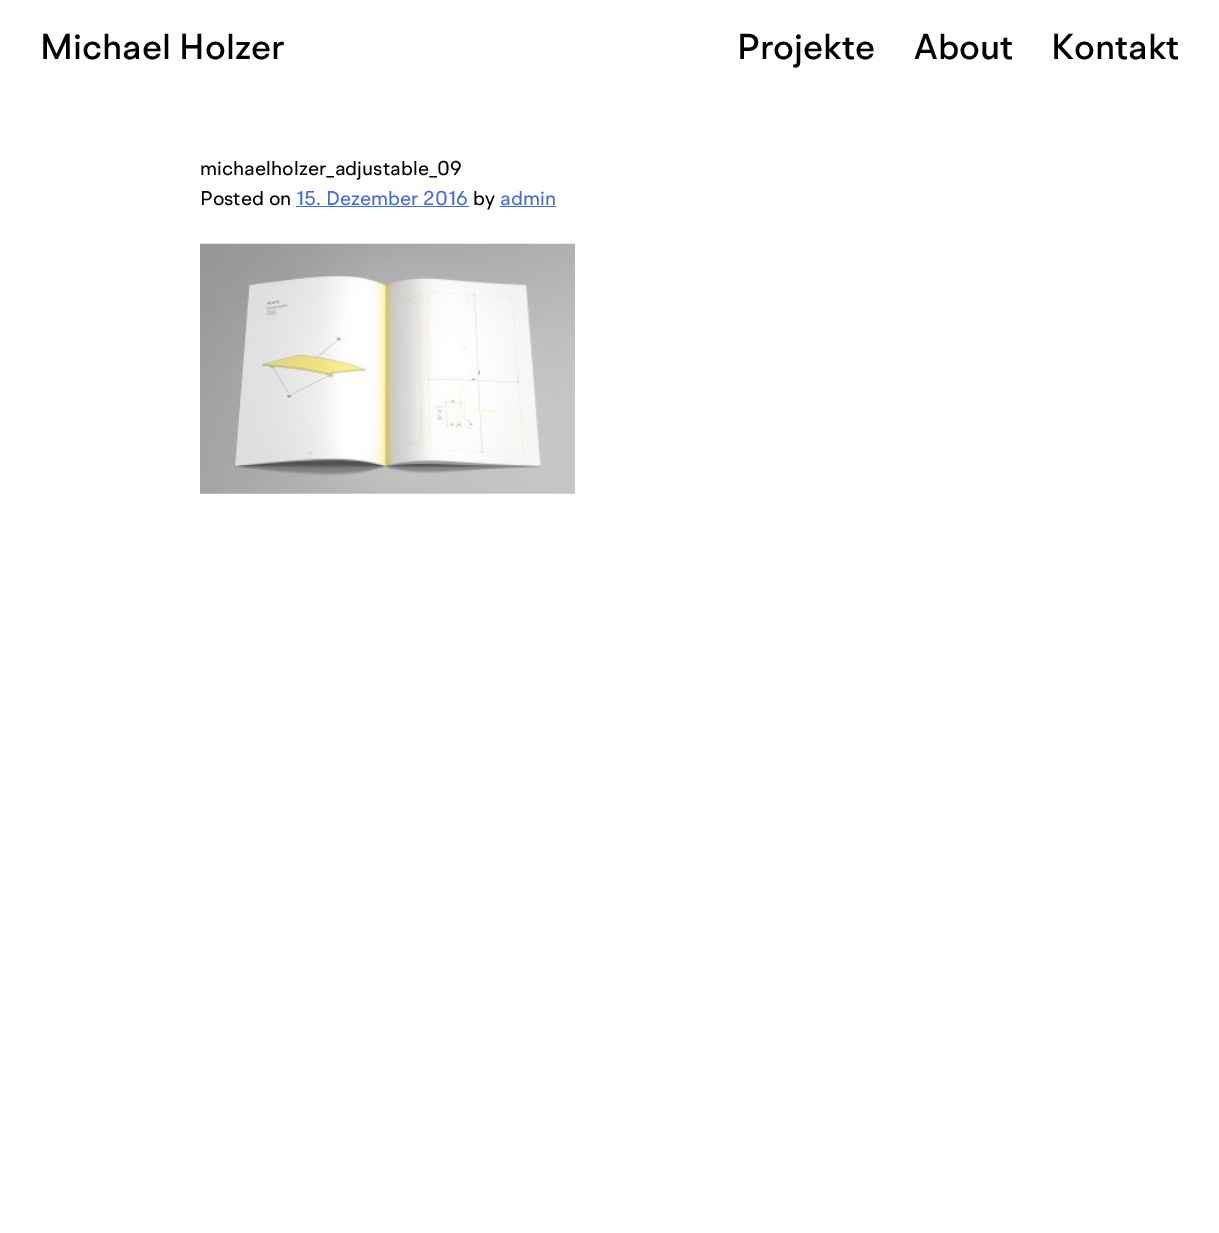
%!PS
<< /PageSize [1219 1233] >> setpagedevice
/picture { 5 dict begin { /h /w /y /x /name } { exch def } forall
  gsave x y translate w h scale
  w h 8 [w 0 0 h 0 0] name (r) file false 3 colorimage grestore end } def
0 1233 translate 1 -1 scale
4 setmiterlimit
1 setgray
0 0 1219 1233 rectfill
/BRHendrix-Medium [36 0 0 -36 0 0] selectfont
0 setgray
40 59 moveto (Michael Holzer) show
737 59 moveto (Projekte) show
914 59 moveto (About) show
1051 59 moveto (Kontakt) show
/BRHendrix-Regular [20 0 0 -20 0 0] selectfont
200 175 moveto (michaelholzer_adjustable_09) show
200 205 moveto (Posted on) show
0.255 0.412 0.882 setrgbcolor
296 205 moveto (15. Dezember 2016) show
296 206 173 1 rectfill
0 setgray
473 205 moveto (by) show
0.255 0.412 0.882 setrgbcolor
500 205 moveto (admin) show
500 206 56 1 rectfill
(img1.rgb) 200 243 375 251 picture
showpage
